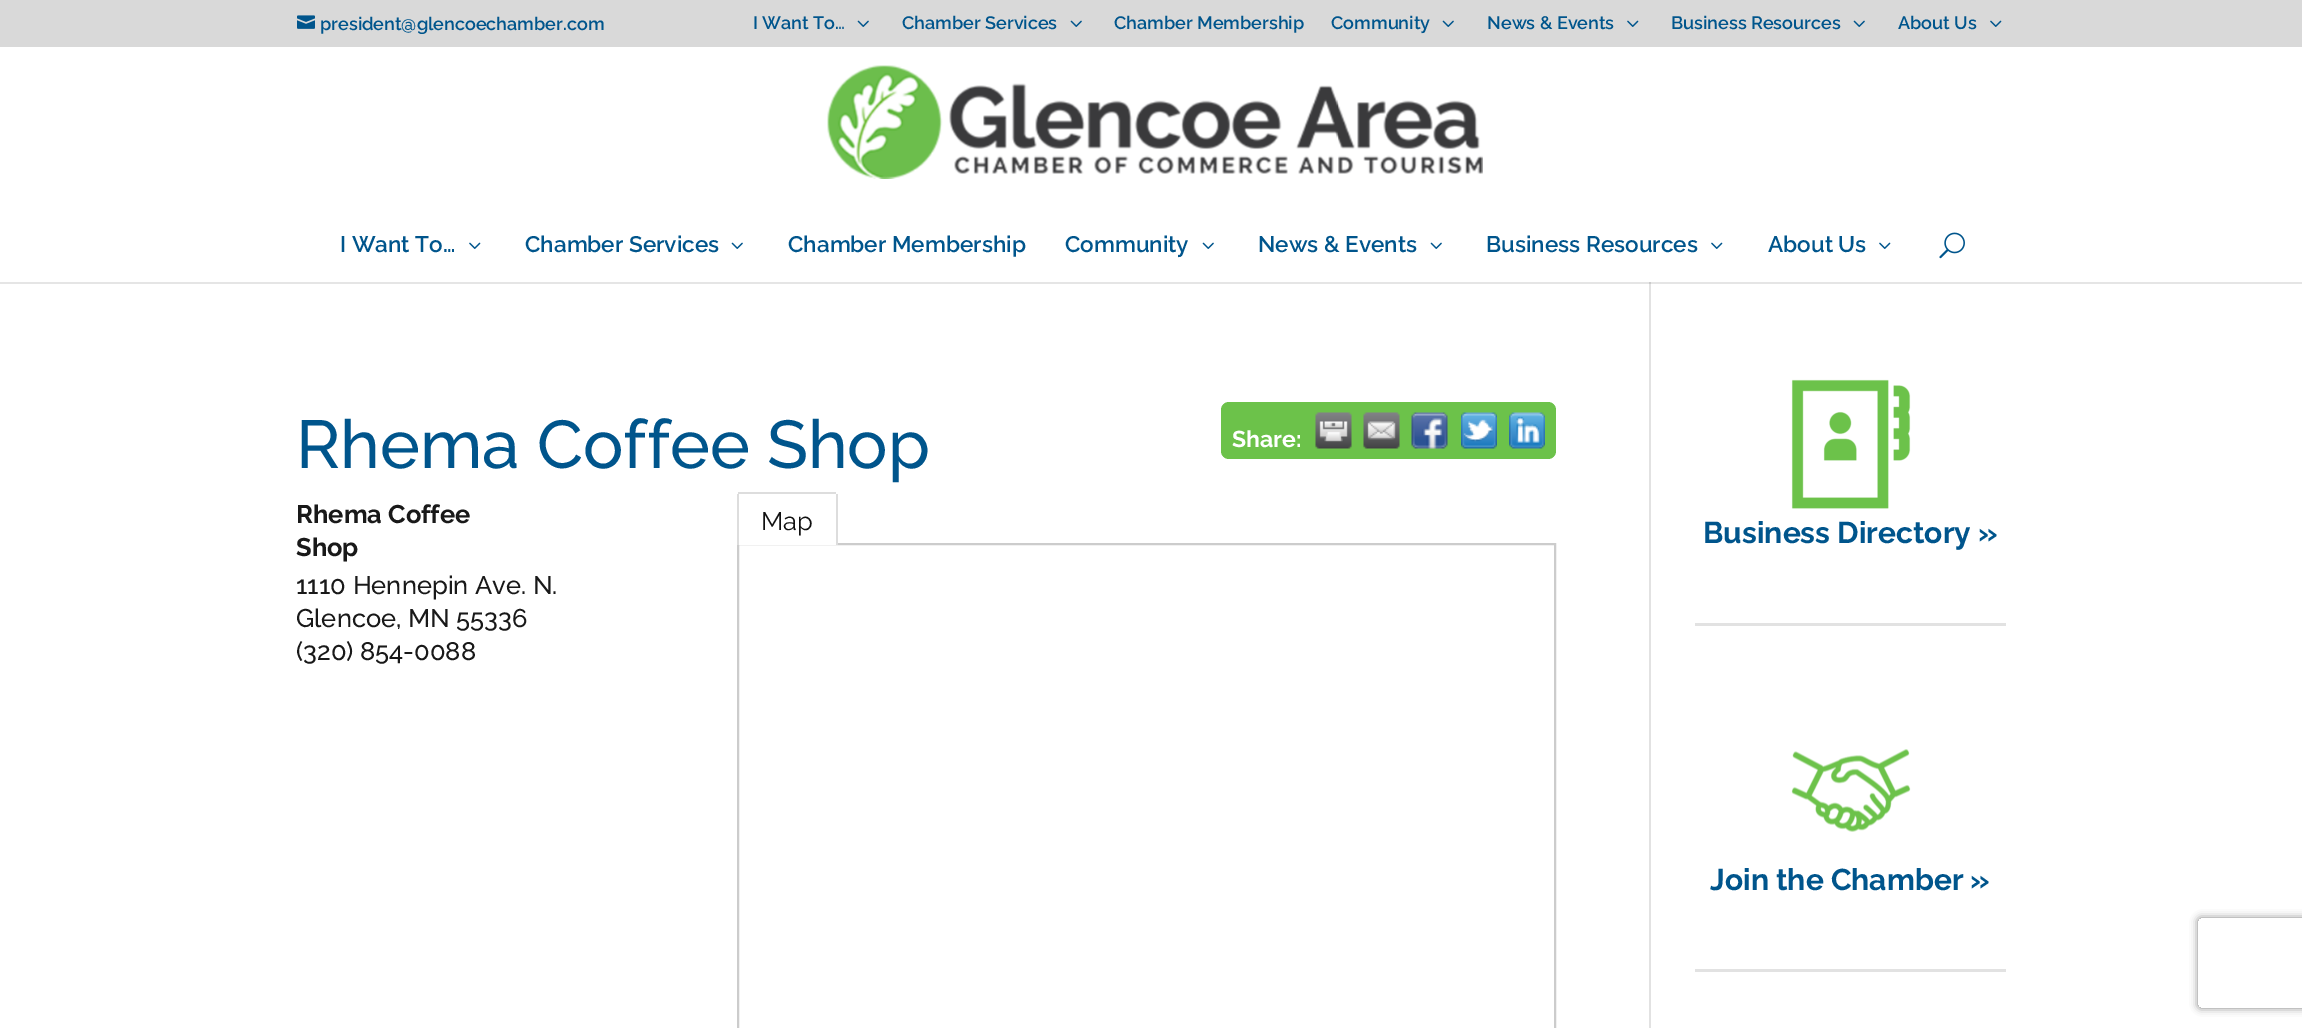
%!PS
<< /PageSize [2302 1028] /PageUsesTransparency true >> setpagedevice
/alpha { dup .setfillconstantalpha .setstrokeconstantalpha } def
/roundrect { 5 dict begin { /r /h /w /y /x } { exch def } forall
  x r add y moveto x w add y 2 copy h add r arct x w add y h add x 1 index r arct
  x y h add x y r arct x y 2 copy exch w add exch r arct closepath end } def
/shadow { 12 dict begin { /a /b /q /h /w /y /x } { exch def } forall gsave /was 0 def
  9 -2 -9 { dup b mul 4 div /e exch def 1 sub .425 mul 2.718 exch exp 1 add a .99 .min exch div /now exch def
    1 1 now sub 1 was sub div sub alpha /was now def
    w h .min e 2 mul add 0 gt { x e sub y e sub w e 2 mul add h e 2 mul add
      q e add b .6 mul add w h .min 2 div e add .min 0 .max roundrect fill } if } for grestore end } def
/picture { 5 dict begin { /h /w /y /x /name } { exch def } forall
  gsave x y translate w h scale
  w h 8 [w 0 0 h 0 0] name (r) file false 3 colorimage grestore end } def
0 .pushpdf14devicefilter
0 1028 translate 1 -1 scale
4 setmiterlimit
1 setgray
0 0 2302 1028 rectfill
0.851 setgray
0 0 2302 47 rectfill
(img1.rgb) 297 15 18 14 picture
/Raleway-SemiBold [18 0 0 -18 0 0] selectfont
0 0.333 0.549 setrgbcolor
320 30 moveto (president@glencoechamber.com) show
753 29 moveto (I Want To…) show
(img2.rgb) 857 20 12 7 picture
902 29 moveto (Chamber Services) show
(img2.rgb) 1070 20 12 7 picture
1114 29 moveto (Chamber Membership) show
1331 29 moveto (Community) show
(img2.rgb) 1442 20 12 7 picture
1487 29 moveto (News & Events) show
(img3.rgb) 1627 20 12 7 picture
1671 29 moveto (Business Resources) show
(img2.rgb) 1853 20 12 7 picture
1898 29 moveto (About Us) show
(img3.rgb) 1990 20 12 7 picture
0.886 setgray
1649 282 2 746 rectfill
0.1 alpha
0 setgray
newpath 0 282 moveto 0 284 lineto 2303 284 lineto 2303 48 lineto 2302 48 lineto 2302 282 lineto closepath fill
1 alpha
(img4.rgb) 827 65 656 114 picture
/Raleway-SemiBold [22.5 0 0 -22.5 0 0] selectfont
0 0.333 0.549 setrgbcolor
340 252 moveto (I Want To…) show
(img5.rgb) 469 242 12 7 picture
525 252 moveto (Chamber Services) show
(img6.rgb) 731 242 12 7 picture
788 252 moveto (Chamber Membership) show
1065 252 moveto (Community) show
(img6.rgb) 1202 242 12 7 picture
1258 252 moveto (News & Events) show
(img6.rgb) 1430 242 12 7 picture
1486 252 moveto (Business Resources) show
(img5.rgb) 1711 242 12 7 picture
1768 252 moveto (About Us) show
(img5.rgb) 1879 242 12 7 picture
(img7.rgb) 1939 232 26 27 picture
/Raleway-Medium [67.5 0 0 -67.5 0 0] selectfont
296 468 moveto (Rhema Coffee Shop) show
0.424 0.761 0.29 setrgbcolor
1221 402 335 57 8 roundrect fill
/Raleway-Bold [23 0 0 -23 0 0] selectfont
1 setgray
1232 447 moveto (Share:) show
(img8.rgb) 1315 412 37 37 picture
(img9.rgb) 1363 412 37 37 picture
(img10.rgb) 1411 412 37 37 picture
(img11.rgb) 1461 412 36 37 picture
(img12.rgb) 1509 412 36 37 picture
/Raleway-Bold [25.5 0 0 -25.5 0 0] selectfont
0.098 setgray
296 523 moveto (Rhema Coffee) show
296 556 moveto (Shop) show
/Raleway-Medium [25.5 0 0 -25.5 0 0] selectfont
296 594 moveto (1110 Hennepin Ave. N.) show
296 627 moveto (Glencoe, MN 55336) show
296 660 moveto (\(320\) 854-0088) show
0.8 setgray
2 setlinewidth
738 544 817 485 rectstroke
1 setgray
newpath 739.5 494 moveto 834.5 494 lineto 835.5 494 836 494.5 836 495.5 curveto 836 545 lineto 738 545 lineto 738 495.5 lineto 738 494.5 738.5 494 739.5 494 curveto closepath fill
0.867 setgray
738 492 98 2 rectfill
836 494 2 51 rectfill
737 494 2 51 rectfill
/Raleway-Regular [25.5 0 0 -25.5 0 0] selectfont
0.067 setgray
761 530 moveto (Map) show
(img13.rgb) 1791 379 120 130 picture
/Raleway-Bold [30 0 0 -30 0 0] selectfont
0 0.333 0.549 setrgbcolor
1703 543 moveto (Business Directory ») show
0.886 setgray
1695 623 311 3 rectfill
(img14.rgb) 1791 749 120 83 picture
0 0.333 0.549 setrgbcolor
1710 890 moveto (Join the Chamber ») show
0.886 setgray
1695 969 311 3 rectfill
gsave
newpath 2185 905 moveto 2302 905 lineto 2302 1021 lineto 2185 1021 lineto closepath 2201 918 moveto 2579 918 lineto 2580.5 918 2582 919.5 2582 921 curveto 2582 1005 lineto 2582 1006.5 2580.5 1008 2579 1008 curveto 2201 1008 lineto 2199.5 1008 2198 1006.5 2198 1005 curveto 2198 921 lineto 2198 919.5 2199.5 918 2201 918 curveto closepath eoclip newpath
0.502 setgray
2198 918 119 90 3 4 1 shadow
grestore
.poppdf14devicefilter showpage
